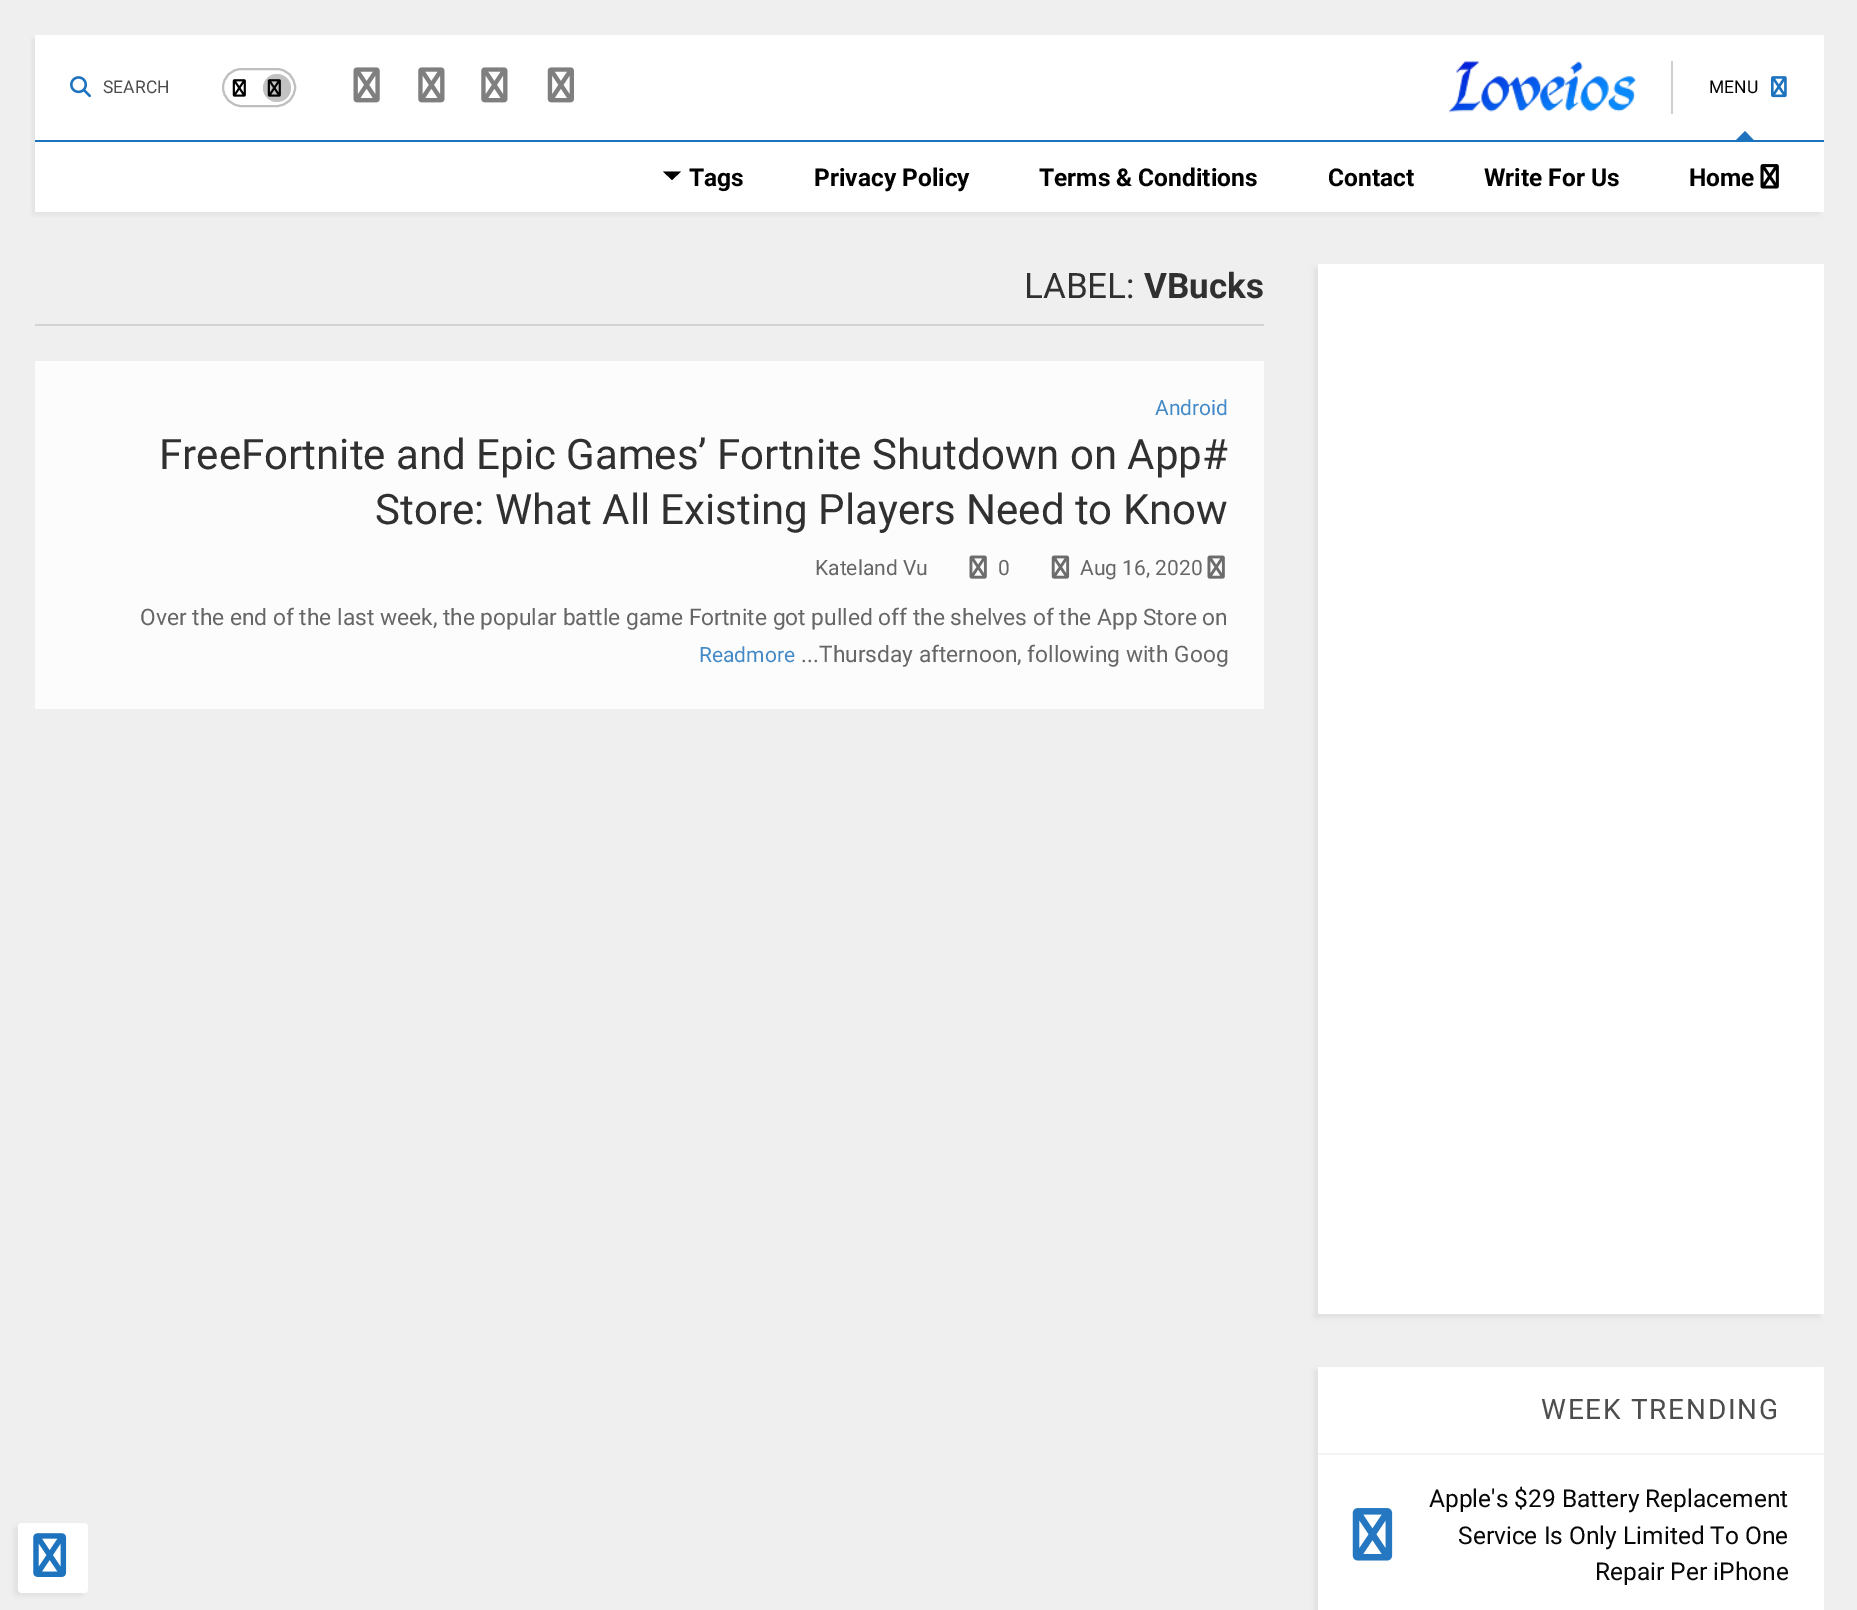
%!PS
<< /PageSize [1857 1610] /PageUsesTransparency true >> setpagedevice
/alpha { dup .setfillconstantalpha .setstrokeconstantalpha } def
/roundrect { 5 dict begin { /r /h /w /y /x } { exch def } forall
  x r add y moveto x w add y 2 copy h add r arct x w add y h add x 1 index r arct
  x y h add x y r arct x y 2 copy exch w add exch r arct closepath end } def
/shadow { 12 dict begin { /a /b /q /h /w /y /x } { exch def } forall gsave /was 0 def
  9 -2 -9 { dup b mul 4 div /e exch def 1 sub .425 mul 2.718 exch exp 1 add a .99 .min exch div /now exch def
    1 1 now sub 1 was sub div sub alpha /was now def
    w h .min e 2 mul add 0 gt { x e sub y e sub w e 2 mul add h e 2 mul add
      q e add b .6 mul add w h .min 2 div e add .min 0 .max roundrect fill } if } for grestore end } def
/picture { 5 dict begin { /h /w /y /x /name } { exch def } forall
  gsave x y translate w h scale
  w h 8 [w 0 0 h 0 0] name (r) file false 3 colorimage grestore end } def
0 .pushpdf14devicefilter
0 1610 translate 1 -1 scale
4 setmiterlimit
0.937 setgray
0 0 1857 1610 rectfill
0 setgray
14 1526 70 70 4 2.5 0.05 shadow
1 setgray
18 1523 70 70 4 roundrect fill
(img1.rgb) 33 1533 34 44 picture
0.471 setgray
32 39 1788 176 0 2.5 0.12 shadow
1 setgray
35 35 1789 177 rectfill
(img2.rgb) 70 76 21 22 picture
/Roboto-Regular [17.5 0 0 -17.5 0 0] selectfont
0.302 setgray
103 93 moveto (SEARCH) show
0.749 setgray
2 setlinewidth
223 69 72 37 18.5 roundrect stroke
(img3.rgb) 232 79 14 18 picture
0.761 setgray
newpath 277 88 14 0 360 arc closepath fill
(img4.rgb) 267 79 14 18 picture
(img5.rgb) 353 67 27 36 picture
(img6.rgb) 418 67 27 36 picture
(img6.rgb) 481 67 27 36 picture
(img7.rgb) 547 67 27 36 picture
0.812 setgray
1671 61 2 53 rectfill
(img8.rgb) 1449 61 187 52 picture
0 setgray
1709 93 moveto (MENU) show
(img9.rgb) 1771 76 16 22 picture
0.118 0.451 0.745 setrgbcolor
newpath 1753.5 140 moveto 1736 140 lineto 1745 131 lineto closepath fill
35 140 1789 2 rectfill
0 setgray
newpath 663 171.5 moveto 681 171.5 lineto 672 180 lineto closepath fill
/Roboto-Bold [24.5 0 0 -24.5 0 0] selectfont
689 186 moveto (Tags) show
814 186 moveto (Privacy Policy) show
1039 186 moveto (Terms & Conditions) show
1328 186 moveto (Contact) show
1484 186 moveto (Write For Us) show
1689 186 moveto (Home) show
(img10.rgb) 1760 164 19 25 picture
0.827 setgray
35 324 1229 2 rectfill
/Roboto-Regular [35 0 0 -35 0 0] selectfont
0.188 setgray
1024 298 moveto (LABEL:) show
/Roboto-Bold [35 0 0 -35 0 0] selectfont
1144 298 moveto (VBucks) show
0.988 setgray
35 361 1229 348 rectfill
/Roboto-Regular [21 0 0 -21 0 0] selectfont
0.267 0.541 0.78 setrgbcolor
1155 415 moveto (Android) show
/Roboto-Regular [42 0 0 -42 0 0] selectfont
0.188 setgray
159 469 moveto (FreeFortnite and Epic Games’ Fortnite Shutdown on App#) show
375 524 moveto (Store: What All Existing Players Need to Know) show
/Roboto-Regular [21 0 0 -21 0 0] selectfont
0.4 setgray
815 575 moveto (Kateland Vu) show
(img11.rgb) 1207 555 18 24 picture
(img11.rgb) 969 555 18 24 picture
998 575 moveto (0) show
(img12.rgb) 1051 555 19 24 picture
1080 575 moveto (Aug 16, 2020) show
/Roboto-Regular [22.75 0 0 -22.75 0 0] selectfont
140 625 moveto (Over the end of the last week, the popular battle game Fortnite got pulled off the shelves of the App Store on) show
/Roboto-Regular [21 0 0 -21 0 0] selectfont
0.267 0.541 0.78 setrgbcolor
699 662 moveto (Readmore) show
/Roboto-Regular [22.75 0 0 -22.75 0 0] selectfont
0.4 setgray
801 662 moveto (...Thursday afternoon, following with Goog) show
0 setgray
1314 268 506 1050 0 2.5 0.05 shadow
1 setgray
1318 264 506 1050 rectfill
0 setgray
1314 1370 506 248 0 2.5 0.05 shadow
1 setgray
1318 1367 506 243 rectfill
0.12 alpha
0.631 setgray
1318 1453 506 2 rectfill
/Roboto-Regular [28 0 0 -28 0 0] selectfont
1 alpha
0.302 setgray
1541 1419 moveto 1.75 0 (WEEK TRENDING) ashow
(img13.rgb) 1352 1508 41 53 picture
/Roboto-Regular [24.5 0 0 -24.5 0 0] selectfont
0.027 setgray
1429 1507 moveto (Apple's $29 Battery Replacement) show
1458 1544 moveto (Service Is Only Limited To One) show
1595 1580 moveto (Repair Per iPhone) show
.poppdf14devicefilter showpage
